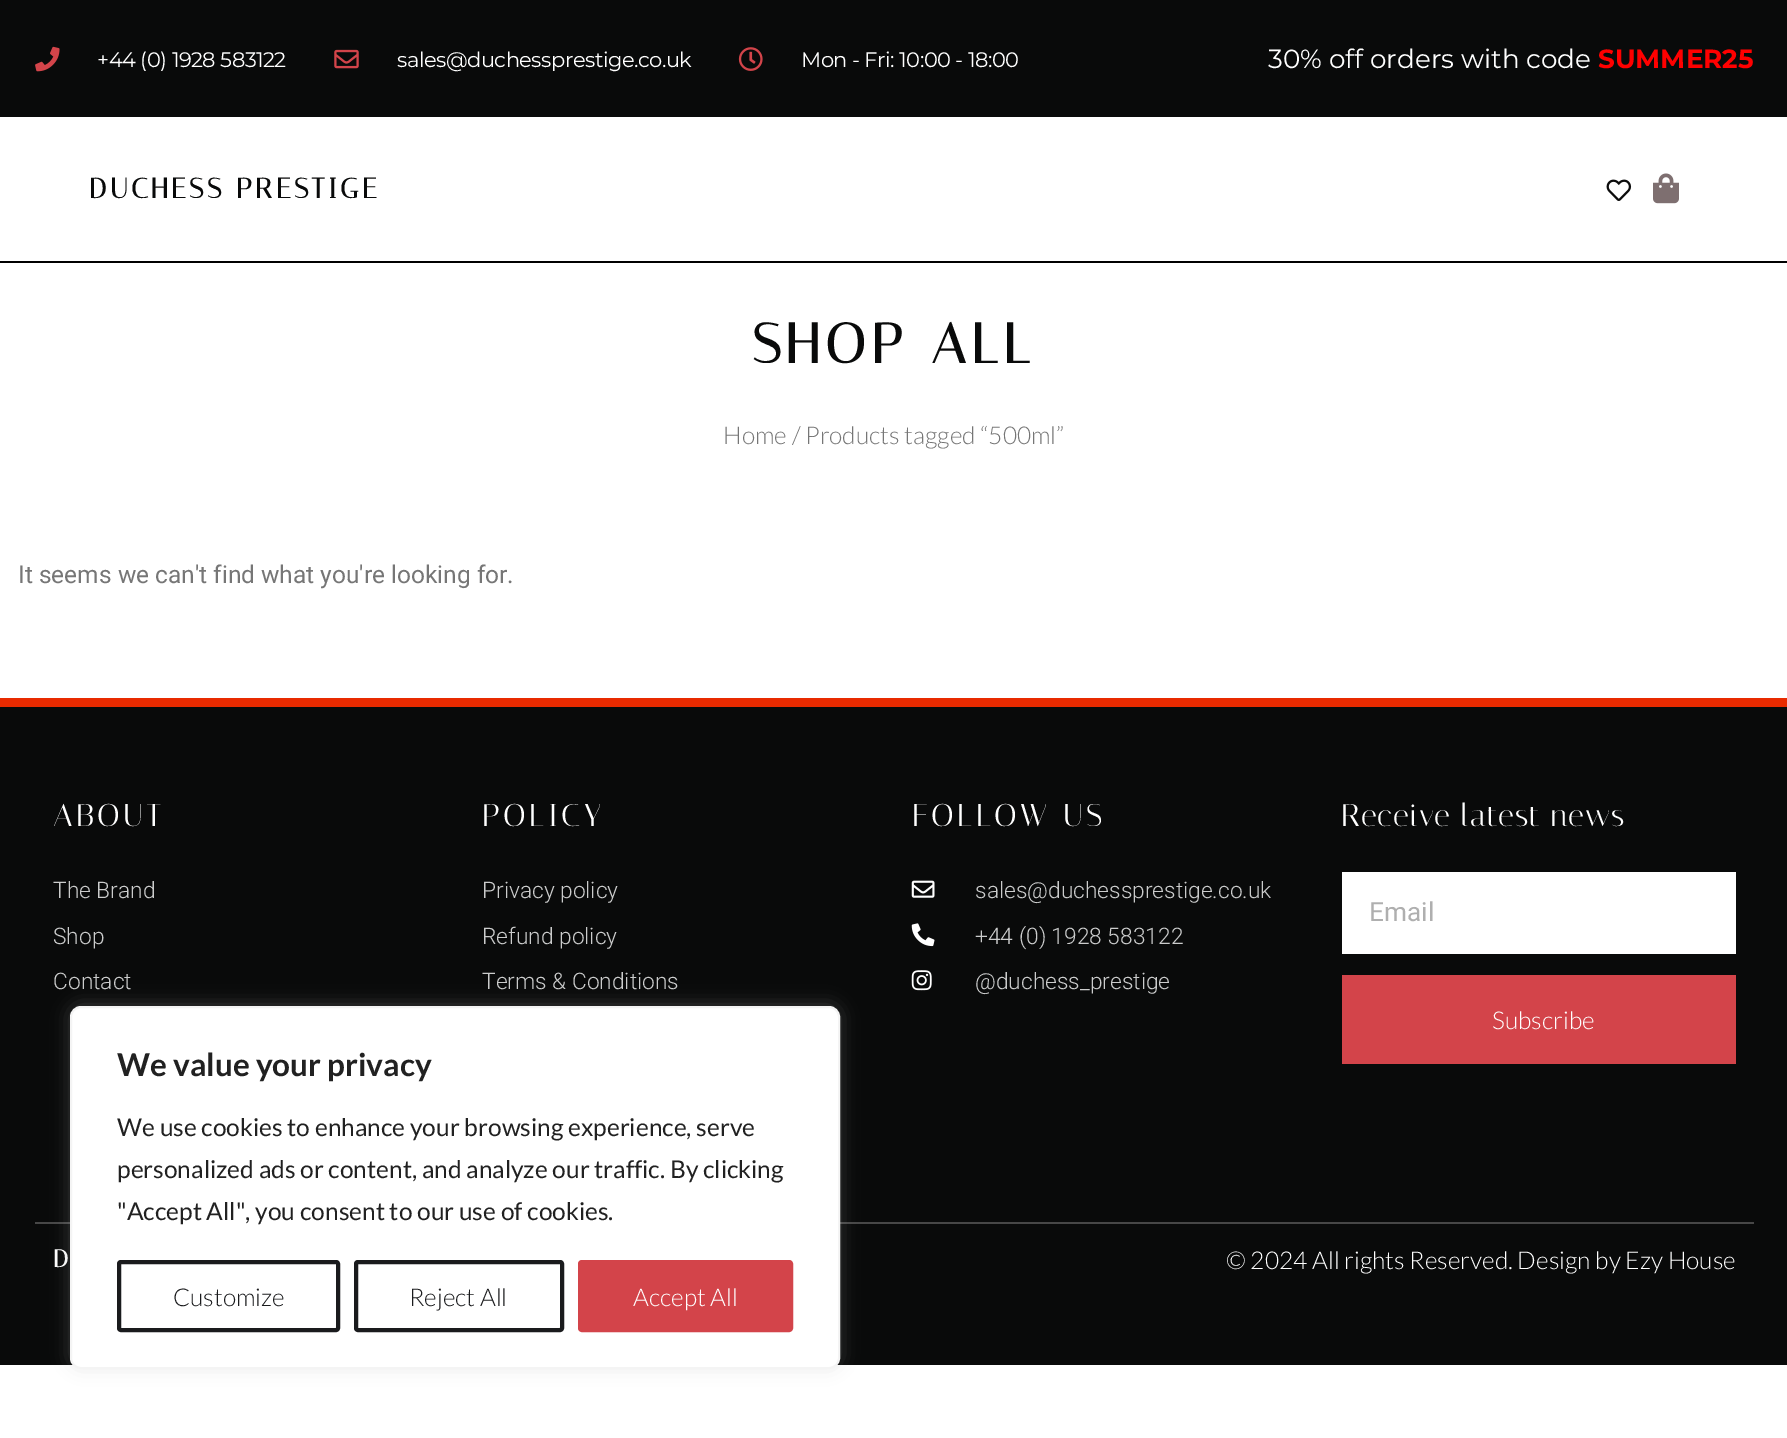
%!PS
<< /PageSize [1787 1438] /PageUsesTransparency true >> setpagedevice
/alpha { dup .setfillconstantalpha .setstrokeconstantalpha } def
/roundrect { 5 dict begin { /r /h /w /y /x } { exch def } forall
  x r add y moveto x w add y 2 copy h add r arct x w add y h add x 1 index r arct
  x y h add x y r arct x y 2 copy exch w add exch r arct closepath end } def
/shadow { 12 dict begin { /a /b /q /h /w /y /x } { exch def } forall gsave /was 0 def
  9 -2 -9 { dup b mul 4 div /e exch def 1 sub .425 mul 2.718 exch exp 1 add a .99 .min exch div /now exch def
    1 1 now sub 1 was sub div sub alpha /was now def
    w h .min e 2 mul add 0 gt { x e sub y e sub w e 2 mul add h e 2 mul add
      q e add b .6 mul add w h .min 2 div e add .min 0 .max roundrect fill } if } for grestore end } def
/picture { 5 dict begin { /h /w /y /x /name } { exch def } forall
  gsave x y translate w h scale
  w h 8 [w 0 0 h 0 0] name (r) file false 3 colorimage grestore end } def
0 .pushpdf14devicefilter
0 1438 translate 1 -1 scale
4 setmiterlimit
1 setgray
0 0 1787 1438 rectfill
0.035 0.039 0.039 setrgbcolor
0 0 1787 117 rectfill
(img1.rgb) 35 46 25 26 picture
/Montserrat-Thin [21 0 0 -21 0 0] selectfont
1 setgray
97 67 moveto -0.5 0 (+44 \(0\) 1928 583122) ashow
(img2.rgb) 334 49 25 20 picture
397 67 moveto -0.5 0 (sales@duchessprestige.co.uk) ashow
(img3.rgb) 738 47 25 24 picture
801 67 moveto -0.5 0 (Mon - Fri: 10:00 - 18:00) ashow
/Montserrat-Thin [26.25 0 0 -26.25 0 0] selectfont
1268 68 moveto (30% off orders with code) show
/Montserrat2-Thin [26.25 0 0 -26.25 0 0] selectfont
1 0 0 setrgbcolor
1598 68 moveto (SUMMER25) show
0 setgray
0 261 1787 2 rectfill
/Italiana-Bold [28 0 0 -28 0 0] selectfont
0.035 0.039 0.039 setrgbcolor
89 198 moveto 3.3 0 (DUCHESS PRESTIGE) ashow
(img4.rgb) 1606 179 26 22 picture
(img5.rgb) 1653 173 26 31 picture
/Italiana-Bold [56 0 0 -56 0 0] selectfont
752 363 moveto 5.5 0 (SHOP ALL) ashow
/Lato-Light [24.5 0 0 -24.5 0 0] selectfont
0.463 setgray
723 444 moveto (Home / Products tagged “500ml”) show
/Roboto-Regular [24.5 0 0 -24.5 0 0] selectfont
18 583 moveto (It seems we can't find what you're looking for.) show
0.035 0.039 0.039 setrgbcolor
0 707 1787 658 rectfill
0.91 0.165 0 setrgbcolor
0 698 1787 9 rectfill
/Italiana-Regular [31.5 0 0 -31.5 0 0] selectfont
1 setgray
53 826 moveto 3.3 0 (ABOUT) ashow
/Roboto-Light [22.75 0 0 -22.75 0 0] selectfont
0.796 0.8 0.8 setrgbcolor
53 898 moveto (The Brand) show
53 944 moveto (Shop) show
53 989 moveto (Contact) show
/Italiana-Regular [31.5 0 0 -31.5 0 0] selectfont
1 setgray
482 826 moveto 3.3 0 (POLICY) ashow
/Roboto-Light [22.75 0 0 -22.75 0 0] selectfont
0.796 0.8 0.8 setrgbcolor
482 898 moveto (Privacy policy) show
482 944 moveto (Refund policy) show
482 989 moveto (Terms & Conditions) show
/Italiana-Regular [31.5 0 0 -31.5 0 0] selectfont
1 setgray
912 826 moveto 3.3 0 (FOLLOW US) ashow
(img6.rgb) 911 880 24 18 picture
/Roboto-Light [22.75 0 0 -22.75 0 0] selectfont
0.796 0.8 0.8 setrgbcolor
975 898 moveto (sales@duchessprestige.co.uk) show
(img7.rgb) 911 923 24 24 picture
975 944 moveto (+44 \(0\) 1928 583122) show
(img8.rgb) 911 970 21 21 picture
975 989 moveto (@duchess_prestige) show
/Italiana-Regular [31.5 0 0 -31.5 0 0] selectfont
1 setgray
1341 826 moveto 0.9 0 (Receive latest news) ashow
1342 872 394 82 rectfill
/Roboto-Regular [26.25 0 0 -26.25 0 0] selectfont
0.686 setgray
1369 921 moveto (Email) show
0.827 0.267 0.29 setrgbcolor
1342 975 394 89 rectfill
/Lato-Light [24.5 0 0 -24.5 0 0] selectfont
1 setgray
1492 1029 moveto (Subscribe) show
0.278 setgray
35 1222 1719 2 rectfill
/Italiana-Bold [24.5 0 0 -24.5 0 0] selectfont
1 setgray
53 1267 moveto 1 0 (D) ashow
/Lato-Light [24.5 0 0 -24.5 0 0] selectfont
1226 1269 moveto (© 2024 All rights Reserved. Design by Ezy House) show
0.675 0.671 0.671 setrgbcolor
70 1005 770 362 11 9 0.3 shadow
1 setgray
71 1007 768 361 10 roundrect gsave fill grestore
0.957 setgray
2 setlinewidth
stroke
/Lato-Bold [31.5 0 0 -31.5 0 0] selectfont
0.129 setgray
117 1076 moveto (We value your privacy) show
/Lato-Regular [24.5 0 0 -24.5 0 0] selectfont
117 1136 moveto (We use cookies to enhance your browsing experience, serve) show
117 1178 moveto (personalized ads or content, and analyze our traffic. By clicking) show
117 1220 moveto ("Accept All", you consent to our use of cookies.) show
0.102 0.106 0.114 setrgbcolor
4 setlinewidth
119 1262 219 68 2 roundrect stroke
/Lato-Light [24.5 0 0 -24.5 0 0] selectfont
173 1306 moveto (Customize) show
356 1262 206 68 2 roundrect stroke
409 1306 moveto (Reject All) show
0.827 0.267 0.29 setrgbcolor
580 1262 211 68 2 roundrect gsave fill grestore
stroke
1 setgray
633 1306 moveto (Accept All) show
.poppdf14devicefilter showpage
